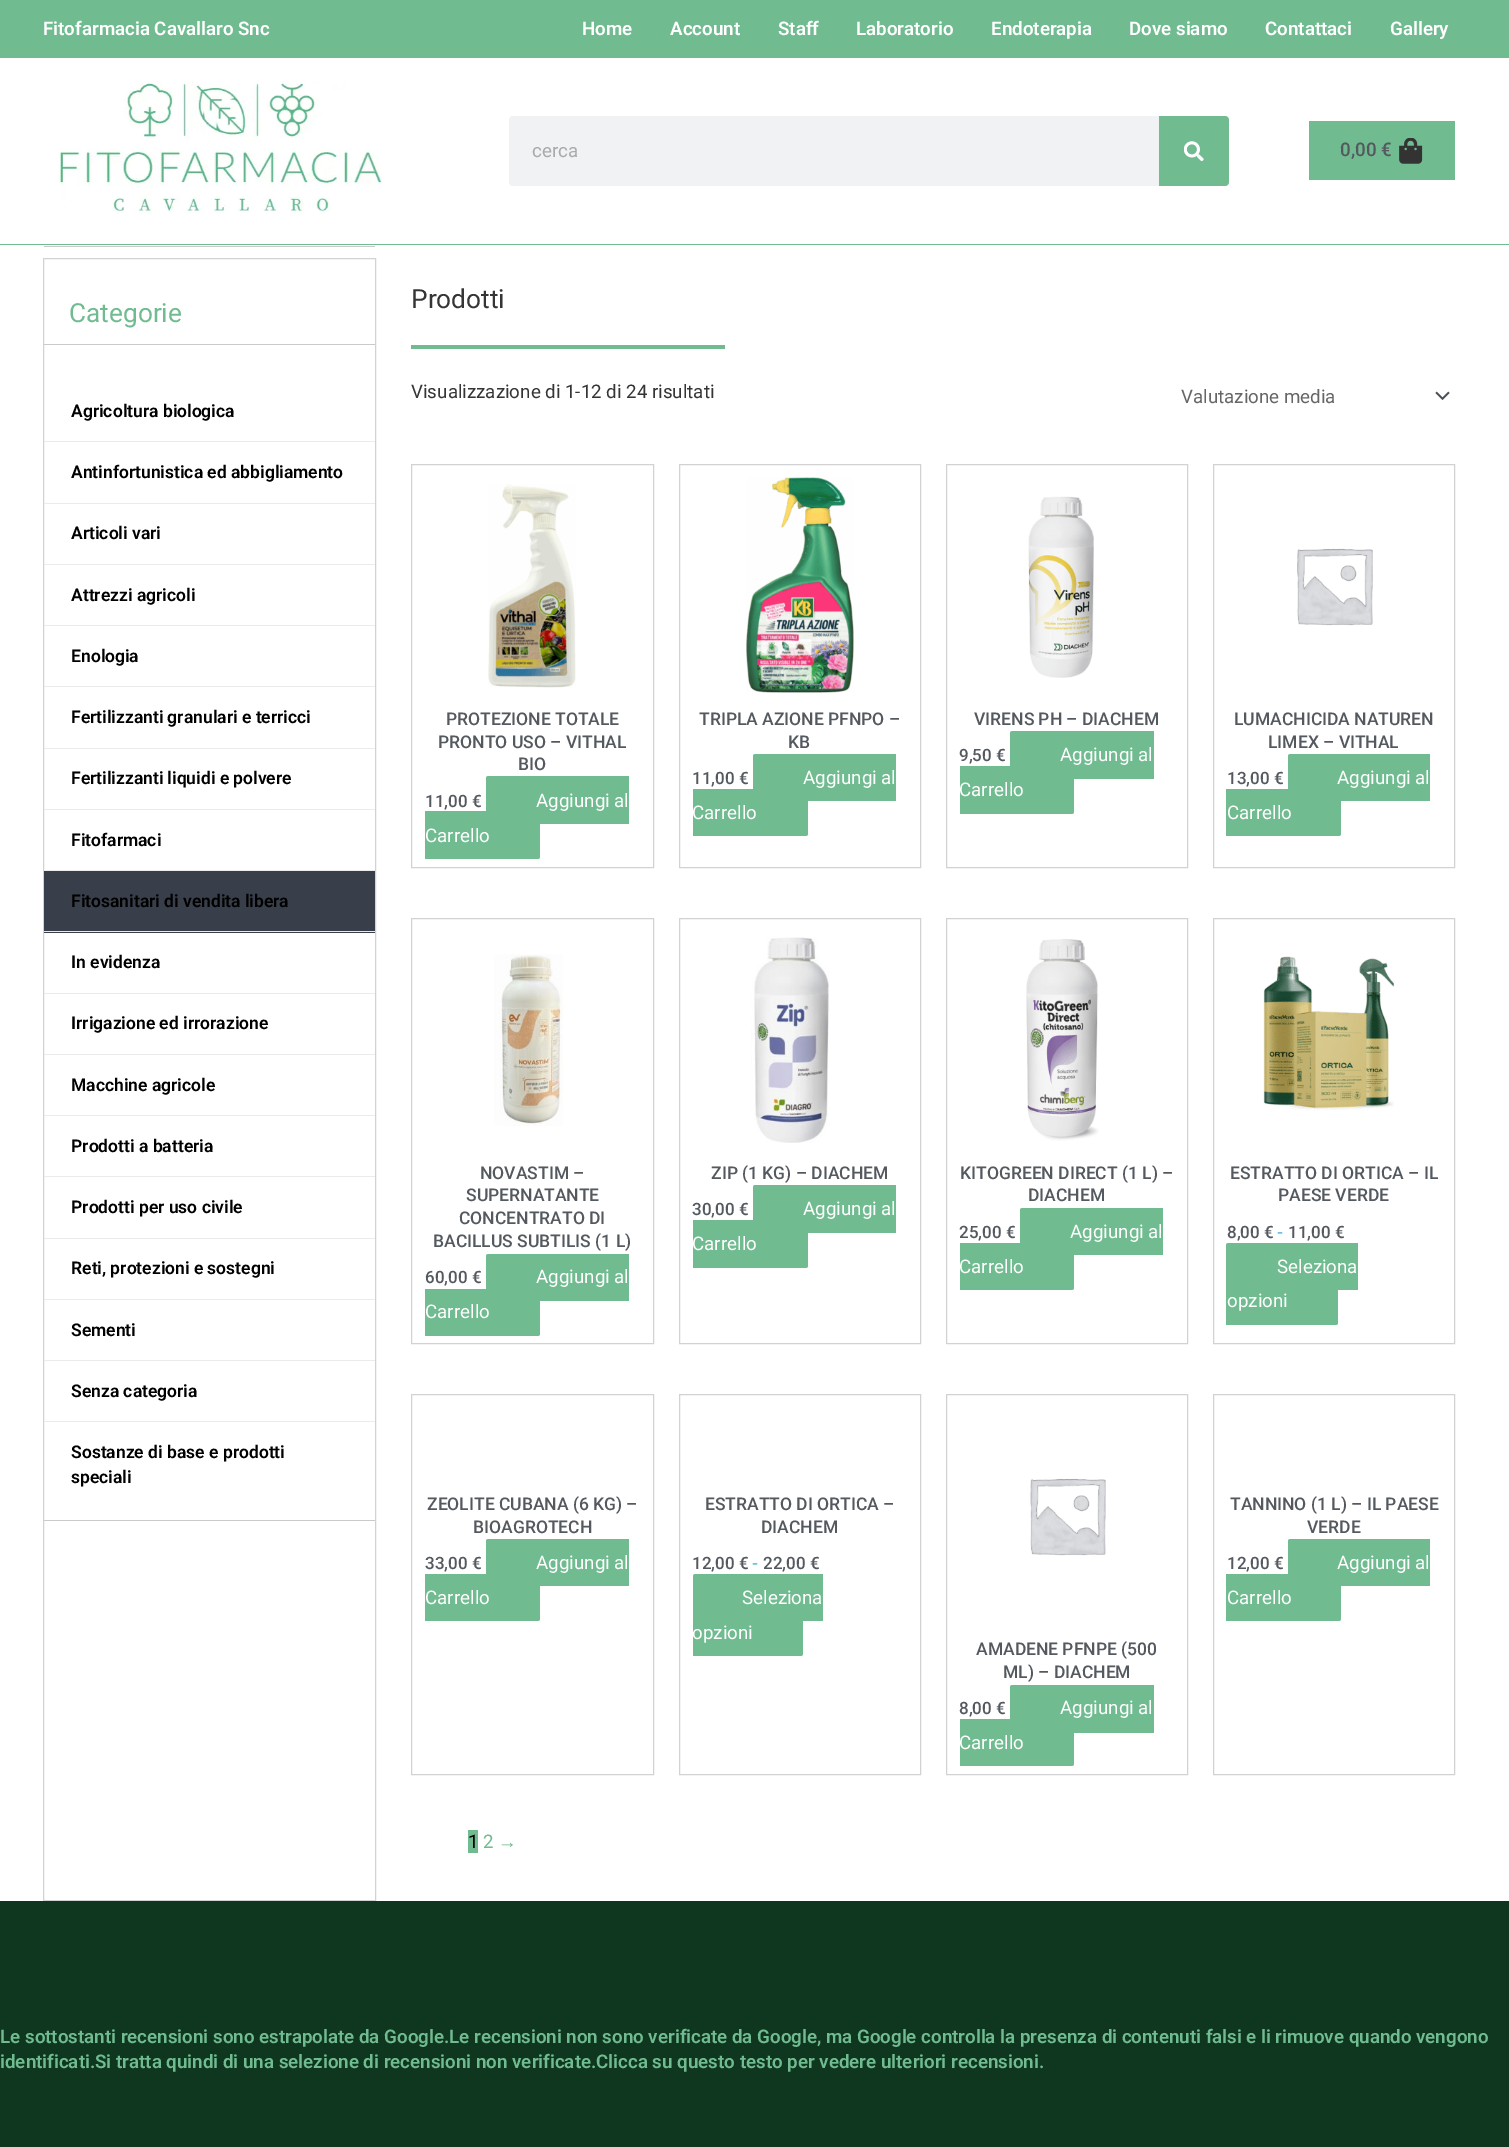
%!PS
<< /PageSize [1509 2147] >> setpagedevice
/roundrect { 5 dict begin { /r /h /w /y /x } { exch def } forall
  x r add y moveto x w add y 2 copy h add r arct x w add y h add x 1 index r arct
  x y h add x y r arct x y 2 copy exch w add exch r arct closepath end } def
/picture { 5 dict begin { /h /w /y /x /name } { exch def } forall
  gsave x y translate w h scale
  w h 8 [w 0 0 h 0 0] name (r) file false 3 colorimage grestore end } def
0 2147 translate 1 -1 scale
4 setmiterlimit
1 setgray
0 0 1509 2147 rectfill
0.439 0.733 0.565 setrgbcolor
0 0 1509 58 rectfill
/Roboto-SemiBold [18.75 0 0 -18.75 0 0] selectfont
1 setgray
43 35 moveto (Fitofarmacia Cavallaro Snc) show
582 35 moveto (Home) show
670 35 moveto (Account) show
778 35 moveto (Staff) show
856 35 moveto (Laboratorio) show
991 35 moveto (Endoterapia) show
1129 35 moveto (Dove siamo) show
1265 35 moveto (Contattaci) show
1390 35 moveto (Gallery) show
(img1.rgb) 60 81 323 133 picture
0.945 0.949 0.953 setrgbcolor
509 116 720 70 4 roundrect fill
/Roboto-Regular [18.75 0 0 -18.75 0 0] selectfont
0.667 setgray
532 157 moveto (cerca) show
0.439 0.733 0.565 setrgbcolor
newpath 1159 116 moveto 1225 116 lineto 1227 116 1229 118 1229 120 curveto 1229 182 lineto 1229 184 1227 186 1225 186 curveto 1159 186 lineto closepath fill
(img2.rgb) 1184 141 20 20 picture
1309 121 146 59 rectfill
/Roboto-Medium [18.75 0 0 -18.75 0 0] selectfont
0.329 0.349 0.373 setrgbcolor
1340 156 moveto (0,00 €) show
(img3.rgb) 1399 138 24 26 picture
0.439 0.733 0.565 setrgbcolor
0 244 1509 1 rectfill
0.824 setgray
43.5 258.5 332 1642 rectstroke
0.792 setgray
44 246 331 1 rectfill
/Roboto-Regular [26.25 0 0 -26.25 0 0] selectfont
0.439 0.733 0.565 setrgbcolor
69 322 moveto (Categorie) show
0.792 setgray
44 344 331 1 rectfill
0.922 setgray
44 441 331 1 rectfill
/Roboto-SemiBold [17.5 0 0 -17.5 0 0] selectfont
0 setgray
71 417 moveto (Agricoltura biologica) show
0.922 setgray
44 503 331 1 rectfill
0 setgray
71 478 moveto (Antinfortunistica ed abbigliamento) show
0.922 setgray
44 564 331 1 rectfill
0 setgray
71 539 moveto (Articoli vari) show
0.922 setgray
44 625 331 1 rectfill
0 setgray
71 601 moveto (Attrezzi agricoli) show
0.922 setgray
44 686 331 1 rectfill
0 setgray
71 662 moveto (Enologia) show
0.922 setgray
44 748 331 1 rectfill
0 setgray
71 723 moveto (Fertilizzanti granulari e terricci) show
0.922 setgray
44 809 331 1 rectfill
0 setgray
71 784 moveto (Fertilizzanti liquidi e polvere) show
0.922 setgray
44 870 331 1 rectfill
0 setgray
71 846 moveto (Fitofarmaci) show
0.22 0.247 0.29 setrgbcolor
44 871 331 62 rectfill
0.922 setgray
44 931 331 1 rectfill
0 setgray
71 907 moveto (Fitosanitari di vendita libera) show
0.922 setgray
44 993 331 1 rectfill
0 setgray
71 968 moveto (In evidenza) show
0.922 setgray
44 1054 331 1 rectfill
0 setgray
71 1029 moveto (Irrigazione ed irrorazione) show
0.922 setgray
44 1115 331 1 rectfill
0 setgray
71 1091 moveto (Macchine agricole) show
0.922 setgray
44 1176 331 1 rectfill
0 setgray
71 1152 moveto (Prodotti a batteria) show
0.922 setgray
44 1238 331 1 rectfill
0 setgray
71 1213 moveto (Prodotti per uso civile) show
0.922 setgray
44 1299 331 1 rectfill
0 setgray
71 1274 moveto (Reti, protezioni e sostegni) show
0.922 setgray
44 1360 331 1 rectfill
0 setgray
71 1336 moveto (Sementi) show
0.922 setgray
44 1421 331 1 rectfill
0 setgray
71 1397 moveto (Senza categoria) show
71 1458 moveto (Sostanze di base e prodotti) show
71 1483 moveto (speciali) show
0.792 setgray
44 1520 331 1 rectfill
/Roboto-Regular [26.25 0 0 -26.25 0 0] selectfont
0.208 setgray
411 308 moveto (Prodotti) show
0.439 0.733 0.565 setrgbcolor
411 345 314 4 rectfill
/Roboto-Regular [18.75 0 0 -18.75 0 0] selectfont
0.208 setgray
411 398 moveto (Visualizzazione di 1-12 di 24 risultati) show
(img4.rgb) 1435 391 15 10 picture
0.4 setgray
1181 403 moveto (Valutazione media) show
0.824 setgray
411.5 464.5 242 403 rectstroke
(img5.rgb) 488 484 88 204 picture
/Roboto-Medium [17.5 0 0 -17.5 0 0] selectfont
0.329 0.349 0.373 setrgbcolor
446 725 moveto (PROTEZIONE TOTALE) show
438 748 moveto (PRONTO USO – VITHAL) show
518 770 moveto (BIO) show
/Roboto-Medium [17 0 0 -17 0 0] selectfont
425 807 moveto (11,00 €) show
0.439 0.733 0.565 setrgbcolor
newpath 488.5 776 moveto 629 776 lineto 629 824 lineto 488.5 824 lineto 487 824 486 823 486 821.5 curveto 486 778.5 lineto 486 777 487 776 488.5 776 curveto closepath fill
/Roboto-Regular [18.75 0 0 -18.75 0 0] selectfont
1 setgray
536 807 moveto (Aggiungi al) show
0.439 0.733 0.565 setrgbcolor
newpath 425 811 moveto 537.5 811 lineto 539 811 540 812 540 813.5 curveto 540 856.5 lineto 540 858 539 859 537.5 859 curveto 425 859 lineto closepath fill
1 setgray
425 842 moveto (Carrello) show
0.824 setgray
679.5 464.5 241 403 rectstroke
(img6.rgb) 746 477 108 216 picture
/Roboto-Medium [17.5 0 0 -17.5 0 0] selectfont
0.329 0.349 0.373 setrgbcolor
699 725 moveto (TRIPLA AZIONE PFNPO –) show
788 748 moveto (KB) show
/Roboto-Medium [17 0 0 -17 0 0] selectfont
692 784 moveto (11,00 €) show
0.439 0.733 0.565 setrgbcolor
newpath 755.5 754 moveto 896 754 lineto 896 801 lineto 755.5 801 lineto 754 801 753 800 753 798.5 curveto 753 756.5 lineto 753 755 754 754 755.5 754 curveto closepath fill
/Roboto-Regular [18.75 0 0 -18.75 0 0] selectfont
1 setgray
803 784 moveto (Aggiungi al) show
0.439 0.733 0.565 setrgbcolor
newpath 693 789 moveto 805.5 789 lineto 807 789 808 790 808 791.5 curveto 808 833.5 lineto 808 835 807 836 805.5 836 curveto 693 836 lineto closepath fill
1 setgray
692 819 moveto (Carrello) show
0.824 setgray
946.5 464.5 241 403 rectstroke
(img7.rgb) 1028 496 66 182 picture
/Roboto-Medium [17.5 0 0 -17.5 0 0] selectfont
0.329 0.349 0.373 setrgbcolor
974 725 moveto (VIRENS PH – DIACHEM) show
/Roboto-Medium [17 0 0 -17 0 0] selectfont
959 761 moveto (9,50 €) show
0.439 0.733 0.565 setrgbcolor
newpath 1012.5 731 moveto 1154 731 lineto 1154 779 lineto 1012.5 779 lineto 1011 779 1010 778 1010 776.5 curveto 1010 733.5 lineto 1010 732 1011 731 1012.5 731 curveto closepath fill
/Roboto-Regular [18.75 0 0 -18.75 0 0] selectfont
1 setgray
1060 761 moveto (Aggiungi al) show
0.439 0.733 0.565 setrgbcolor
newpath 960 766 moveto 1071.5 766 lineto 1073 766 1074 767 1074 768.5 curveto 1074 811.5 lineto 1074 813 1073 814 1071.5 814 curveto 960 814 lineto closepath fill
1 setgray
959 796 moveto (Carrello) show
0.824 setgray
1213.5 464.5 241 403 rectstroke
(img8.rgb) 1297 548 76 78 picture
/Roboto-Medium [17.5 0 0 -17.5 0 0] selectfont
0.329 0.349 0.373 setrgbcolor
1234 725 moveto (LUMACHICIDA NATUREN) show
1268 748 moveto (LIMEX – VITHAL) show
/Roboto-Medium [17 0 0 -17 0 0] selectfont
1227 784 moveto (13,00 €) show
0.439 0.733 0.565 setrgbcolor
newpath 1290.5 754 moveto 1430 754 lineto 1430 801 lineto 1290.5 801 lineto 1289 801 1288 800 1288 798.5 curveto 1288 756.5 lineto 1288 755 1289 754 1290.5 754 curveto closepath fill
/Roboto-Regular [18.75 0 0 -18.75 0 0] selectfont
1 setgray
1337 784 moveto (Aggiungi al) show
0.439 0.733 0.565 setrgbcolor
newpath 1226 789 moveto 1338.5 789 lineto 1340 789 1341 790 1341 791.5 curveto 1341 833.5 lineto 1341 835 1340 836 1338.5 836 curveto 1226 836 lineto closepath fill
1 setgray
1227 819 moveto (Carrello) show
0.824 setgray
411.5 918.5 242 425 rectstroke
(img9.rgb) 494 954 69 172 picture
/Roboto-Medium [17.5 0 0 -17.5 0 0] selectfont
0.329 0.349 0.373 setrgbcolor
480 1179 moveto (NOVASTIM –) show
466 1201 moveto (SUPERNATANTE) show
459 1224 moveto (CONCENTRATO DI) show
433 1247 moveto (BACILLUS SUBTILIS \(1 L\)) show
/Roboto-Medium [17 0 0 -17 0 0] selectfont
425 1283 moveto (60,00 €) show
0.439 0.733 0.565 setrgbcolor
newpath 488.5 1254 moveto 629 1254 lineto 629 1301 lineto 488.5 1301 lineto 487 1301 486 1300 486 1298.5 curveto 486 1256.5 lineto 486 1255 487 1254 488.5 1254 curveto closepath fill
/Roboto-Regular [18.75 0 0 -18.75 0 0] selectfont
1 setgray
536 1283 moveto (Aggiungi al) show
0.439 0.733 0.565 setrgbcolor
newpath 425 1289 moveto 537.5 1289 lineto 539 1289 540 1290 540 1291.5 curveto 540 1333.5 lineto 540 1335 539 1336 537.5 1336 curveto 425 1336 lineto closepath fill
1 setgray
425 1318 moveto (Carrello) show
0.824 setgray
679.5 918.5 241 425 rectstroke
(img10.rgb) 751 937 79 206 picture
/Roboto-Medium [17.5 0 0 -17.5 0 0] selectfont
0.329 0.349 0.373 setrgbcolor
711 1179 moveto (ZIP \(1 KG\) – DIACHEM) show
/Roboto-Medium [17 0 0 -17 0 0] selectfont
692 1215 moveto (30,00 €) show
0.439 0.733 0.565 setrgbcolor
newpath 755.5 1185 moveto 896 1185 lineto 896 1233 lineto 755.5 1233 lineto 754 1233 753 1232 753 1230.5 curveto 753 1187.5 lineto 753 1186 754 1185 755.5 1185 curveto closepath fill
/Roboto-Regular [18.75 0 0 -18.75 0 0] selectfont
1 setgray
803 1215 moveto (Aggiungi al) show
0.439 0.733 0.565 setrgbcolor
newpath 693 1220 moveto 805.5 1220 lineto 807 1220 808 1221 808 1222.5 curveto 808 1265.5 lineto 808 1267 807 1268 805.5 1268 curveto 693 1268 lineto closepath fill
1 setgray
692 1250 moveto (Carrello) show
0.824 setgray
946.5 918.5 241 425 rectstroke
(img11.rgb) 1026 939 73 202 picture
/Roboto-Medium [17.5 0 0 -17.5 0 0] selectfont
0.329 0.349 0.373 setrgbcolor
960 1179 moveto (KITOGREEN DIRECT \(1 L\) –) show
1028 1201 moveto (DIACHEM) show
/Roboto-Medium [17 0 0 -17 0 0] selectfont
959 1238 moveto (25,00 €) show
0.439 0.733 0.565 setrgbcolor
newpath 1022.5 1208 moveto 1163 1208 lineto 1163 1255 lineto 1022.5 1255 lineto 1021 1255 1020 1254 1020 1252.5 curveto 1020 1210.5 lineto 1020 1209 1021 1208 1022.5 1208 curveto closepath fill
/Roboto-Regular [18.75 0 0 -18.75 0 0] selectfont
1 setgray
1070 1238 moveto (Aggiungi al) show
0.439 0.733 0.565 setrgbcolor
newpath 960 1243 moveto 1071.5 1243 lineto 1073 1243 1074 1244 1074 1245.5 curveto 1074 1287.5 lineto 1074 1289 1073 1290 1071.5 1290 curveto 960 1290 lineto closepath fill
1 setgray
959 1273 moveto (Carrello) show
0.824 setgray
1213.5 918.5 241 425 rectstroke
(img12.rgb) 1263 956 131 155 picture
/Roboto-Medium [17.5 0 0 -17.5 0 0] selectfont
0.329 0.349 0.373 setrgbcolor
1230 1179 moveto (ESTRATTO DI ORTICA – IL) show
1278 1201 moveto (PAESE VERDE) show
/Roboto-Medium [17 0 0 -17 0 0] selectfont
1227 1238 moveto (8,00 €) show
/Roboto-SemiBold [17 0 0 -17 0 0] selectfont
0.431 0.757 0.894 setrgbcolor
1277 1238 moveto (-) show
/Roboto-Medium [17 0 0 -17 0 0] selectfont
0.329 0.349 0.373 setrgbcolor
1288 1238 moveto (11,00 €) show
0.439 0.733 0.565 setrgbcolor
newpath 1228.5 1243 moveto 1358 1243 lineto 1358 1290 lineto 1228.5 1290 lineto 1227 1290 1226 1289 1226 1287.5 curveto 1226 1245.5 lineto 1226 1244 1227 1243 1228.5 1243 curveto closepath fill
/Roboto-Regular [18.75 0 0 -18.75 0 0] selectfont
1 setgray
1277 1273 moveto (Seleziona) show
0.439 0.733 0.565 setrgbcolor
newpath 1226 1278 moveto 1335.5 1278 lineto 1337 1278 1338 1279 1338 1280.5 curveto 1338 1322.5 lineto 1338 1324 1337 1325 1335.5 1325 curveto 1226 1325 lineto closepath fill
1 setgray
1227 1307 moveto (opzioni) show
0.824 setgray
411.5 1394.5 242 380 rectstroke
/Roboto-Medium [17.5 0 0 -17.5 0 0] selectfont
0.329 0.349 0.373 setrgbcolor
427 1510 moveto (ZEOLITE CUBANA \(6 KG\) –) show
473 1533 moveto (BIOAGROTECH) show
/Roboto-Medium [17 0 0 -17 0 0] selectfont
425 1569 moveto (33,00 €) show
0.439 0.733 0.565 setrgbcolor
newpath 488.5 1539 moveto 629 1539 lineto 629 1586 lineto 488.5 1586 lineto 487 1586 486 1585 486 1583.5 curveto 486 1541.5 lineto 486 1540 487 1539 488.5 1539 curveto closepath fill
/Roboto-Regular [18.75 0 0 -18.75 0 0] selectfont
1 setgray
536 1569 moveto (Aggiungi al) show
0.439 0.733 0.565 setrgbcolor
newpath 425 1574 moveto 537.5 1574 lineto 539 1574 540 1575 540 1576.5 curveto 540 1618.5 lineto 540 1620 539 1621 537.5 1621 curveto 425 1621 lineto closepath fill
1 setgray
425 1604 moveto (Carrello) show
0.824 setgray
679.5 1394.5 241 380 rectstroke
/Roboto-Medium [17.5 0 0 -17.5 0 0] selectfont
0.329 0.349 0.373 setrgbcolor
705 1510 moveto (ESTRATTO DI ORTICA –) show
761 1533 moveto (DIACHEM) show
/Roboto-Medium [17 0 0 -17 0 0] selectfont
692 1569 moveto (12,00 €) show
/Roboto-SemiBold [17 0 0 -17 0 0] selectfont
0.431 0.757 0.894 setrgbcolor
752 1569 moveto (-) show
/Roboto-Medium [17 0 0 -17 0 0] selectfont
0.329 0.349 0.373 setrgbcolor
763 1569 moveto (22,00 €) show
0.439 0.733 0.565 setrgbcolor
newpath 695.5 1574 moveto 823 1574 lineto 823 1621 lineto 695.5 1621 lineto 694 1621 693 1620 693 1618.5 curveto 693 1576.5 lineto 693 1575 694 1574 695.5 1574 curveto closepath fill
/Roboto-Regular [18.75 0 0 -18.75 0 0] selectfont
1 setgray
742 1604 moveto (Seleziona) show
0.439 0.733 0.565 setrgbcolor
newpath 693 1609 moveto 800.5 1609 lineto 802 1609 803 1610 803 1611.5 curveto 803 1653.5 lineto 803 1655 802 1656 800.5 1656 curveto 693 1656 lineto closepath fill
1 setgray
692 1639 moveto (opzioni) show
0.824 setgray
1213.5 1394.5 241 380 rectstroke
/Roboto-Medium [17.5 0 0 -17.5 0 0] selectfont
0.329 0.349 0.373 setrgbcolor
1230 1510 moveto (TANNINO \(1 L\) – IL PAESE) show
1307 1533 moveto (VERDE) show
/Roboto-Medium [17 0 0 -17 0 0] selectfont
1227 1569 moveto (12,00 €) show
0.439 0.733 0.565 setrgbcolor
newpath 1290.5 1539 moveto 1430 1539 lineto 1430 1586 lineto 1290.5 1586 lineto 1289 1586 1288 1585 1288 1583.5 curveto 1288 1541.5 lineto 1288 1540 1289 1539 1290.5 1539 curveto closepath fill
/Roboto-Regular [18.75 0 0 -18.75 0 0] selectfont
1 setgray
1337 1569 moveto (Aggiungi al) show
0.439 0.733 0.565 setrgbcolor
newpath 1226 1574 moveto 1338.5 1574 lineto 1340 1574 1341 1575 1341 1576.5 curveto 1341 1618.5 lineto 1341 1620 1340 1621 1338.5 1621 curveto 1226 1621 lineto closepath fill
1 setgray
1227 1604 moveto (Carrello) show
0.824 setgray
946.5 1394.5 241 380 rectstroke
(img13.rgb) 1030 1478 76 78 picture
/Roboto-Medium [17.5 0 0 -17.5 0 0] selectfont
0.329 0.349 0.373 setrgbcolor
976 1655 moveto (AMADENE PFNPE \(500) show
1003 1678 moveto (ML\) – DIACHEM) show
/Roboto-Medium [17 0 0 -17 0 0] selectfont
959 1714 moveto (8,00 €) show
0.439 0.733 0.565 setrgbcolor
newpath 1012.5 1685 moveto 1154 1685 lineto 1154 1733 lineto 1012.5 1733 lineto 1011 1733 1010 1732 1010 1730.5 curveto 1010 1687.5 lineto 1010 1686 1011 1685 1012.5 1685 curveto closepath fill
/Roboto-Regular [18.75 0 0 -18.75 0 0] selectfont
1 setgray
1060 1714 moveto (Aggiungi al) show
0.439 0.733 0.565 setrgbcolor
newpath 960 1719 moveto 1071.5 1719 lineto 1073 1719 1074 1720 1074 1721.5 curveto 1074 1763.5 lineto 1074 1765 1073 1766 1071.5 1766 curveto 960 1766 lineto closepath fill
1 setgray
959 1749 moveto (Carrello) show
0.439 0.733 0.565 setrgbcolor
468 1830 10 23 rectfill
0 setgray
468 1848 moveto (1) show
0.439 0.733 0.565 setrgbcolor
483 1848 moveto (2) show
/LiberationSans-Regular [18.75 0 0 -18.75 0 0] selectfont
498 1848 moveto (→) show
0.059 0.212 0.122 setrgbcolor
0 1901 1509 246 rectfill
/Roboto-SemiBold [18.75 0 0 -18.75 0 0] selectfont
0.439 0.733 0.565 setrgbcolor
0 2043 moveto (Le sottostanti recensioni sono estrapolate da Google.Le recensioni non sono verificate da Google, ma Google controlla la presenza di contenuti falsi e li rimuove quando vengono) show
0 2068 moveto (identificati.Si tratta quindi di una selezione di recensioni non verificate.Clicca su questo testo per vedere ulteriori recensioni.) show
showpage
